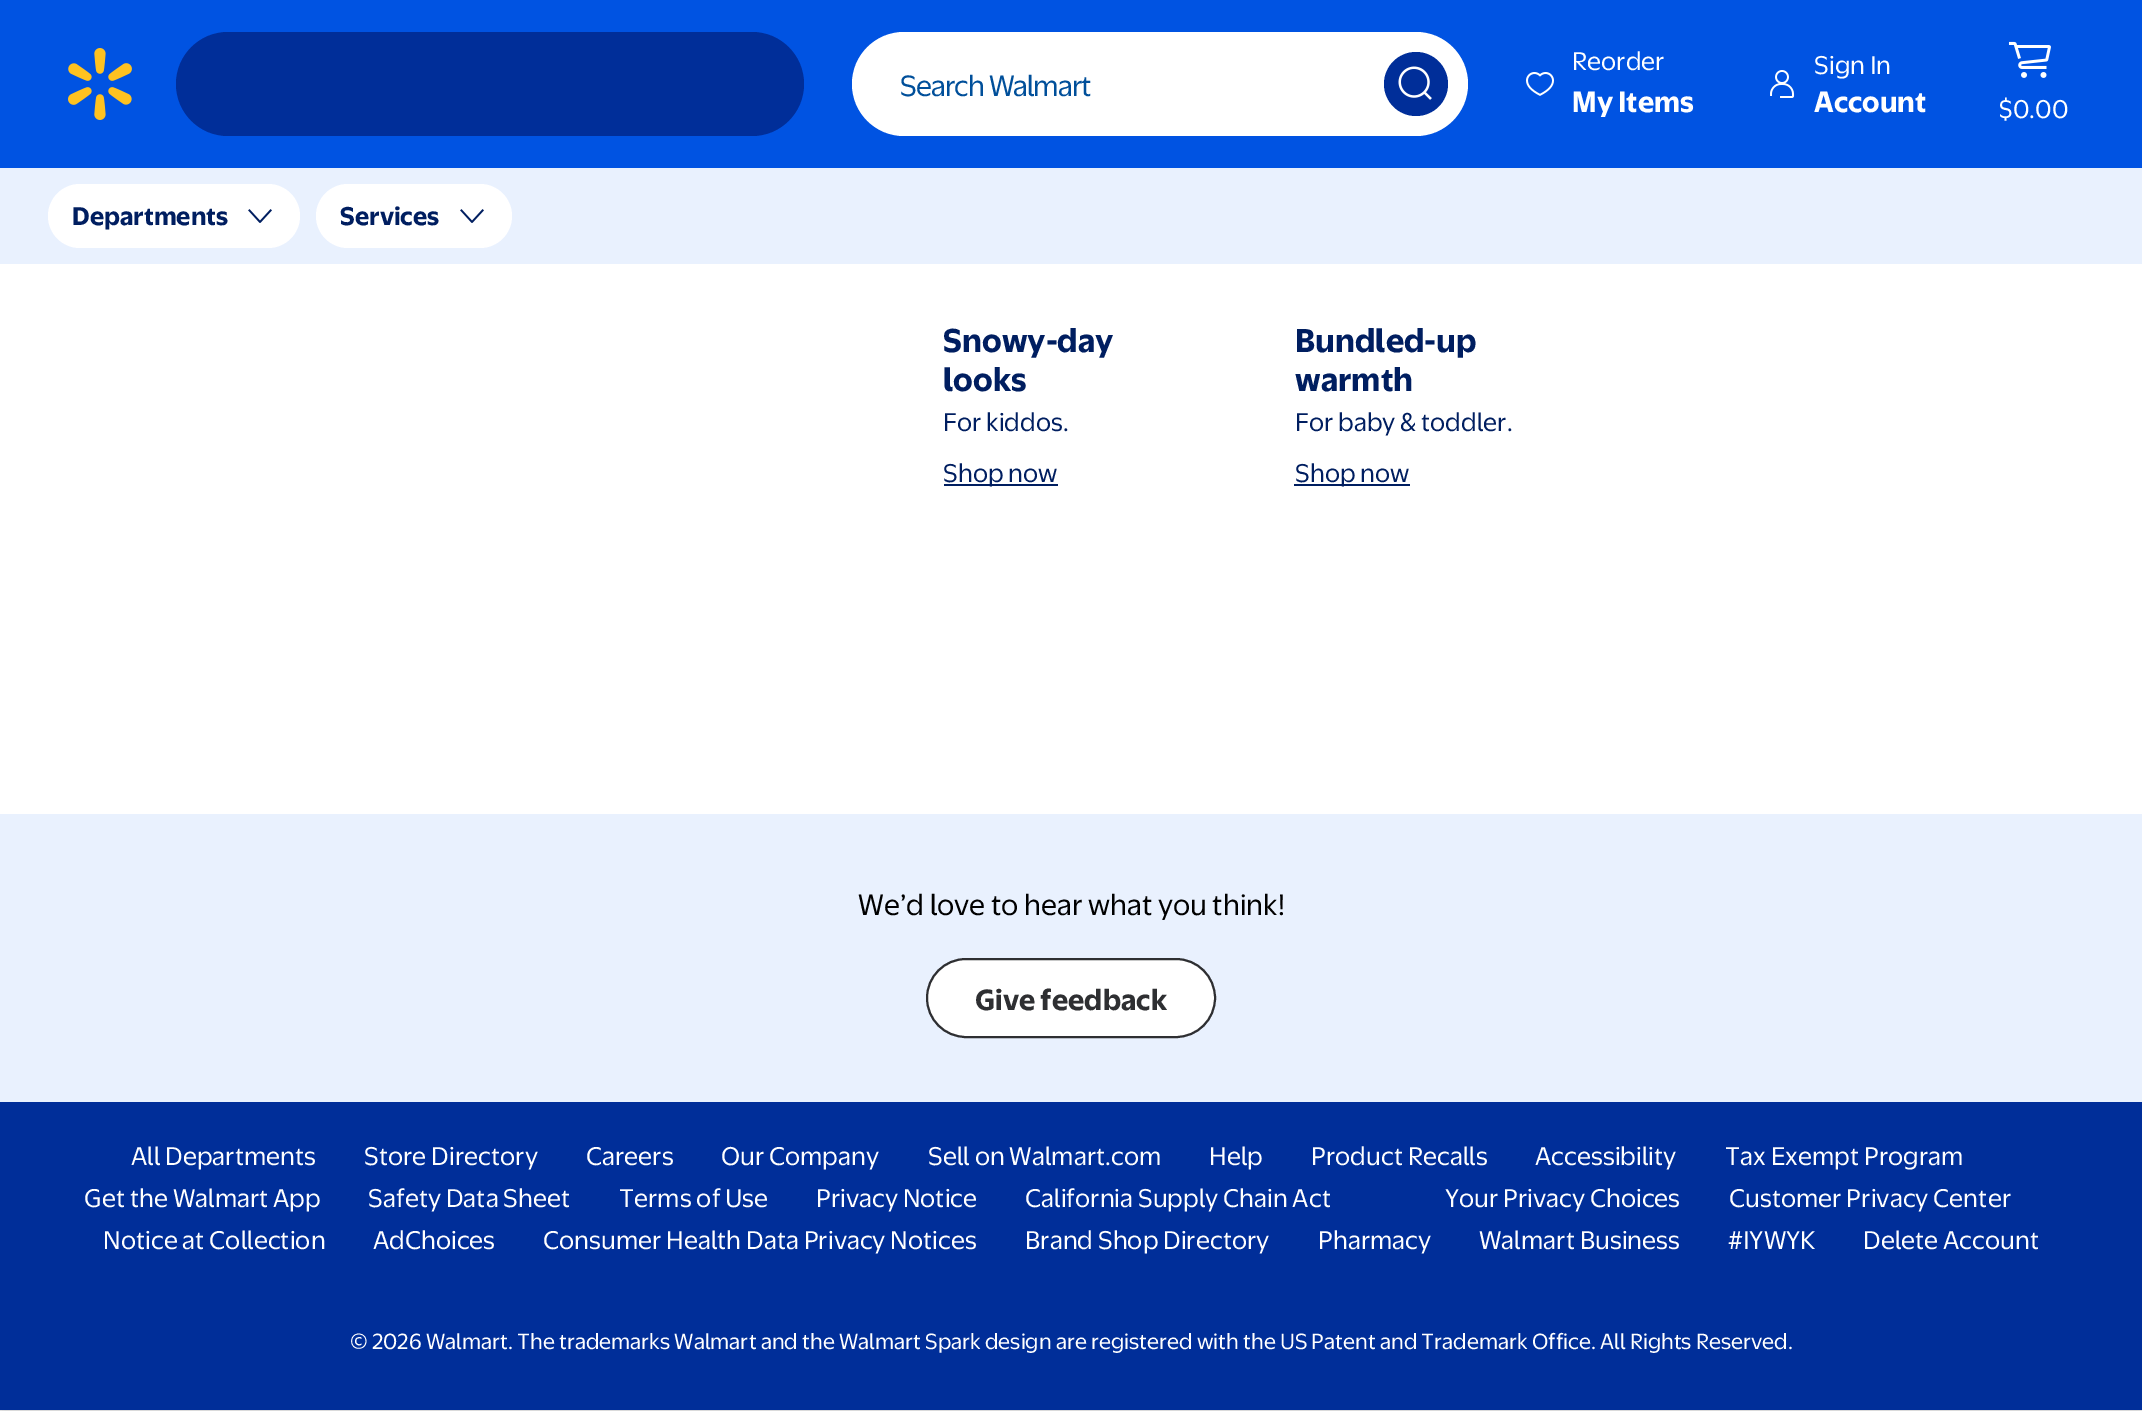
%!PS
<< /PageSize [2142 1411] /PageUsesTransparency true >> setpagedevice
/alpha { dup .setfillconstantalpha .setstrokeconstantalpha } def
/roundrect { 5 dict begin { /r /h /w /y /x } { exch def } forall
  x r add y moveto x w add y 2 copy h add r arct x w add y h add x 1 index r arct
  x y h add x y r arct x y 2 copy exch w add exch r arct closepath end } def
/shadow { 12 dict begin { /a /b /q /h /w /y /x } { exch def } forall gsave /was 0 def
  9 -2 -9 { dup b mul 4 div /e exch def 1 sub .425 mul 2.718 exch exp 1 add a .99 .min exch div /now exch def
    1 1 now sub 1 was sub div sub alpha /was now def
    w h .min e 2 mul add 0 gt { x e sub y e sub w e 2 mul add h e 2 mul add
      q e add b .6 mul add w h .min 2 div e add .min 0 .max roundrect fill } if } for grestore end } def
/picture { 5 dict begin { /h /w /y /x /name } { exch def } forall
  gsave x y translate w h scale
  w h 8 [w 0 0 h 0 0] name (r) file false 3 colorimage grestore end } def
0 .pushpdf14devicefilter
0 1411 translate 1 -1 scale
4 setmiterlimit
1 setgray
0 0 2142 1411 rectfill
gsave
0 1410 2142 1 rectclip
0 setgray
-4 -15 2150 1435 0 5 0.15 shadow
grestore
0 0.325 0.886 setrgbcolor
0 0 2142 168 rectfill
(img1.rgb) 68 48 64 72 picture
0 0.18 0.6 setrgbcolor
176 32 628 104 52 roundrect fill
1 setgray
852 32 616 104 52 roundrect fill
/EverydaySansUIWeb-Regular [32 0 0 -32 0 0] selectfont
0 0.31 0.604 setrgbcolor
900 96 moveto -1 0 (Search Walmart) ashow
0 0.18 0.6 setrgbcolor
newpath 1416 84 32 0 360 arc closepath fill
(img2.rgb) 1398 66 34 34 picture
(img3.rgb) 1526 72 28 24 picture
/EverydaySansUIWeb-Regular [28 0 0 -28 0 0] selectfont
1 setgray
1572 70 moveto (Reorder) show
/EverydaySansUIWeb-Bold [32 0 0 -32 0 0] selectfont
1572 112 moveto (My Items) show
(img4.rgb) 1770 70 25 28 picture
/EverydaySansUIWeb-Regular [28 0 0 -28 0 0] selectfont
1814 74 moveto (Sign In) show
/EverydaySansUIWeb-Bold [32 0 0 -32 0 0] selectfont
1814 112 moveto (Account) show
(img5.rgb) 2008 41 43 37 picture
/EverydaySansUIWeb-Regular [28 0 0 -28 0 0] selectfont
1999 118 moveto ($0.00) show
0.914 0.945 0.996 setrgbcolor
0 168 2142 96 rectfill
1 setgray
48 184 252 64 32 roundrect fill
/EverydaySansUIWeb-Bold [28 0 0 -28 0 0] selectfont
0 0.118 0.376 setrgbcolor
72 225 moveto (Departments) show
(img6.rgb) 248 209 24 14 picture
1 setgray
316 184 196 64 32 roundrect fill
0 0.118 0.376 setrgbcolor
340 225 moveto (Services) show
(img6.rgb) 460 209 24 14 picture
/EverydaySansUIWeb-Bold [36 0 0 -36 0 0] selectfont
943 352 moveto (Snowy-day) show
943 391 moveto (looks) show
/EverydaySansUIWeb-Regular [28 0 0 -28 0 0] selectfont
943 431 moveto (For kiddos.) show
944 484 114 2 rectfill
943 482 moveto (Shop now) show
/EverydaySansUIWeb-Bold [36 0 0 -36 0 0] selectfont
1295 352 moveto (Bundled-up) show
1295 391 moveto (warmth) show
/EverydaySansUIWeb-Regular [28 0 0 -28 0 0] selectfont
1295 431 moveto (For baby & toddler.) show
1294 484 116 2 rectfill
1295 482 moveto (Shop now) show
0.914 0.945 0.996 setrgbcolor
0 814 2142 288 rectfill
/EverydaySansUIWeb-Regular [32 0 0 -32 0 0] selectfont
0 setgray
858 915 moveto (We’d love to hear what you think!) show
1 setgray
927 959 288 78 39 roundrect gsave fill grestore
0.18 0.184 0.196 setrgbcolor
2 setlinewidth
stroke
/EverydaySansUIWeb-Bold [32 0 0 -32 0 0] selectfont
975 1010 moveto (Give feedback) show
0 0.18 0.6 setrgbcolor
0 1102 2142 308 rectfill
/EverydaySansUIWeb-Regular [28 0 0 -28 0 0] selectfont
1 setgray
131 1165 moveto (All Departments) show
364 1165 moveto (Store Directory) show
586 1165 moveto (Careers) show
721 1165 moveto (Our Company) show
928 1165 moveto (Sell on Walmart.com) show
1209 1165 moveto (Help) show
1311 1165 moveto (Product Recalls) show
1535 1165 moveto (Accessibility) show
1725 1165 moveto (Tax Exempt Program) show
84 1207 moveto (Get the Walmart App) show
368 1207 moveto (Safety Data Sheet) show
619 1207 moveto (Terms of Use) show
816 1207 moveto (Privacy Notice) show
1025 1207 moveto (California Supply Chain Act) show
1445 1207 moveto (Your Privacy Choices) show
1729 1207 moveto (Customer Privacy Center) show
103 1249 moveto (Notice at Collection) show
373 1249 moveto (AdChoices) show
543 1249 moveto (Consumer Health Data Privacy Notices) show
1025 1249 moveto (Brand Shop Directory) show
1318 1249 moveto (Pharmacy) show
1479 1249 moveto (Walmart Business) show
1728 1249 moveto (#IYWYK) show
1863 1249 moveto (Delete Account) show
/EverydaySansUIWeb-Regular [24 0 0 -24 0 0] selectfont
350 1349 moveto (© 2026 Walmart. The trademarks Walmart and the Walmart Spark design are registered with the US Patent and Trademark Office. All Rights Reserved.) show
.poppdf14devicefilter showpage
